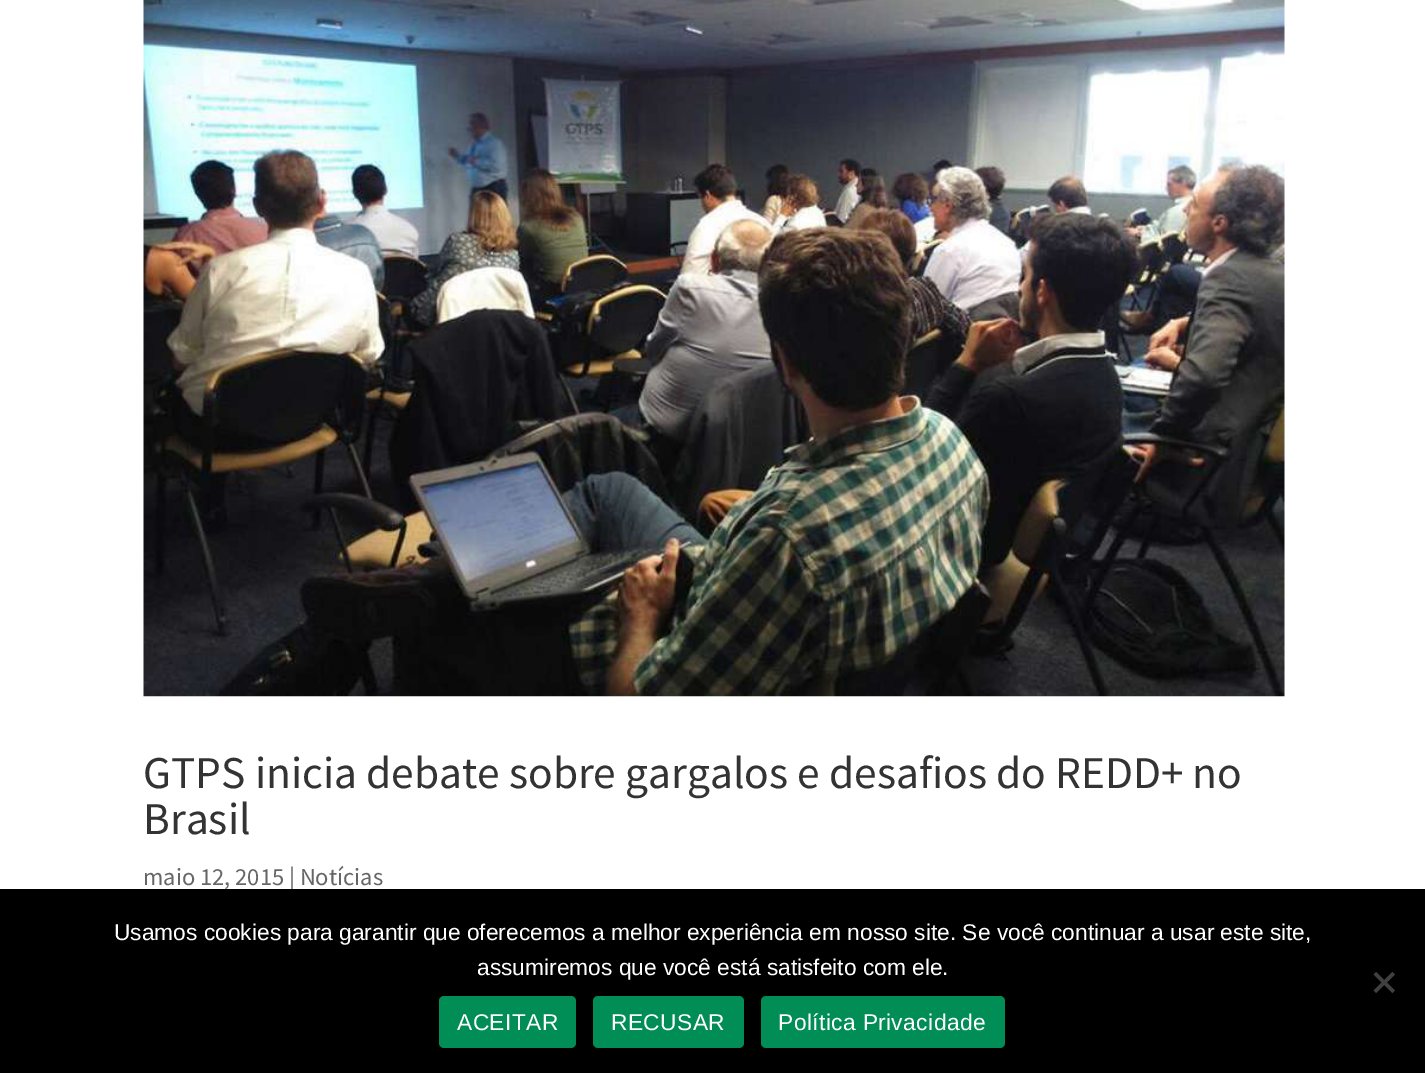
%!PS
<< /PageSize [1425 1073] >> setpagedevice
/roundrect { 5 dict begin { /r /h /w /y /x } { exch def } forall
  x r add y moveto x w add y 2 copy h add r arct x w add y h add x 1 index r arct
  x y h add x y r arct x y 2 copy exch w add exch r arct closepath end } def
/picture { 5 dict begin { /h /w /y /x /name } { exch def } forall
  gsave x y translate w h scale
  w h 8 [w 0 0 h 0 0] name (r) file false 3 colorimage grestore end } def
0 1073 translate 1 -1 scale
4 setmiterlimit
1 setgray
0 0 1425 1073 rectfill
(img1.rgb) 143 0 1142 697 picture
/SourceSansPro-Regular [45.5 0 0 -45.5 0 0] selectfont
0.2 setgray
143 788 moveto (GTPS inicia debate sobre gargalos e desafios do REDD+ no) show
143 834 moveto (Brasil) show
/SourceSansPro-Regular [24.5 0 0 -24.5 0 0] selectfont
0.4 setgray
143 885 moveto (maio 12, 2015 | Notícias) show
0 setgray
0 889 1425 184 rectfill
/LiberationSans-Regular [22.75 0 0 -22.75 0 0] selectfont
1 setgray
114 940 moveto (Usamos cookies para garantir que oferecemos a melhor experiência em nosso site. Se você continuar a usar este site,) show
477 975 moveto (assumiremos que você está satisfeito com ele.) show
0.251 setgray
newpath 1392.5 972 moveto 1395 974.5 lineto 1376 993 lineto 1373.5 990.5 lineto closepath fill
newpath 1373.5 974.5 moveto 1376 972 lineto 1395 990.5 lineto 1392.5 993 lineto closepath fill
0 0.553 0.337 setrgbcolor
439 996 137 52 5 roundrect fill
1 setgray
457 1030 moveto 0.4 0 (ACEITAR) ashow
0 0.553 0.337 setrgbcolor
593 996 151 52 5 roundrect fill
1 setgray
611 1030 moveto 0.4 0 (RECUSAR) ashow
0 0.553 0.337 setrgbcolor
761 996 244 52 5 roundrect fill
1 setgray
778 1030 moveto 0.4 0 (Política Privacidade) ashow
showpage
